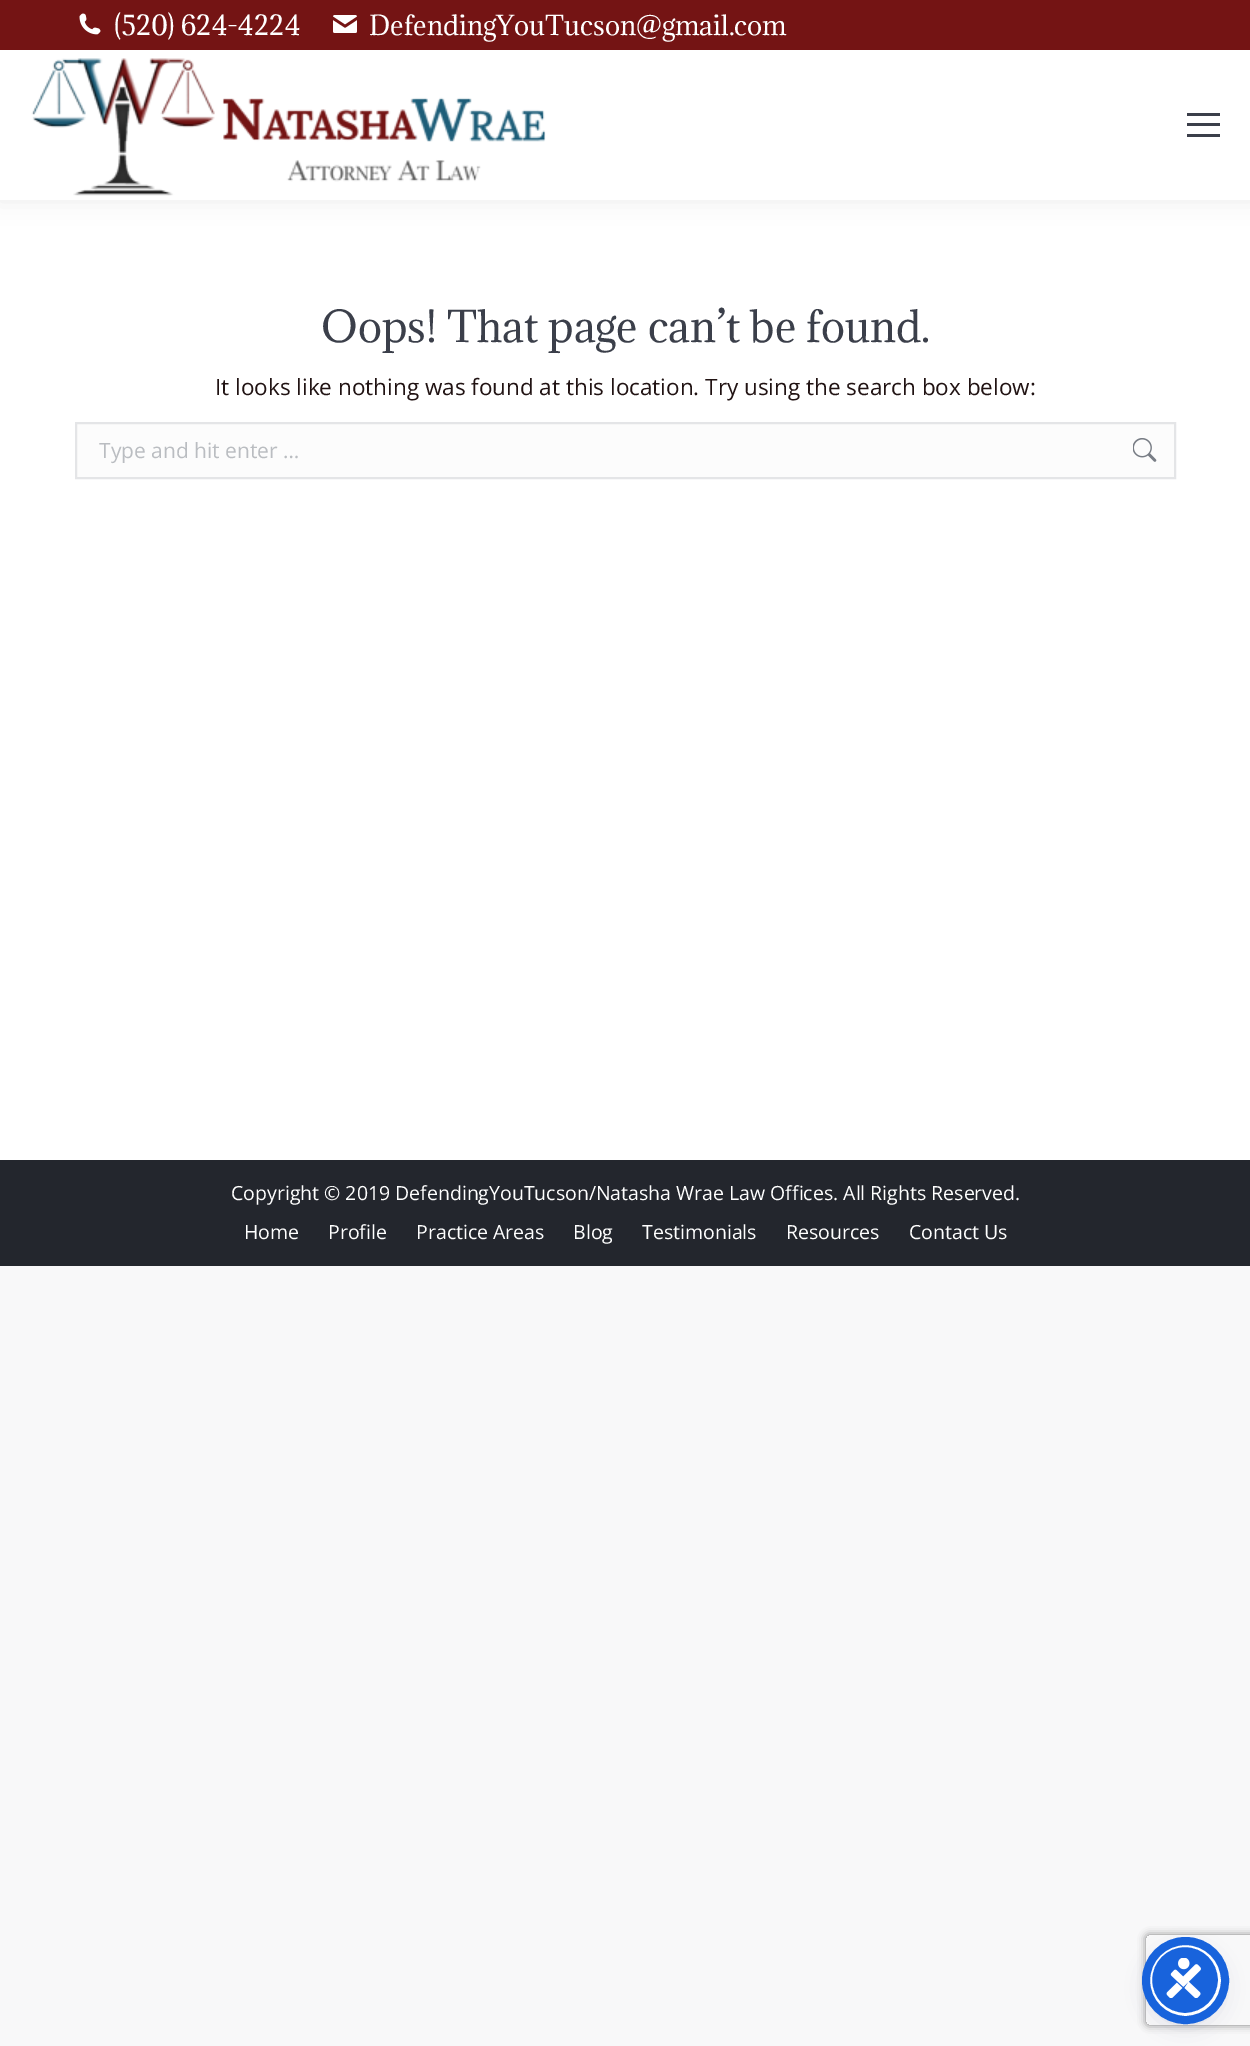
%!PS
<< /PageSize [1250 2046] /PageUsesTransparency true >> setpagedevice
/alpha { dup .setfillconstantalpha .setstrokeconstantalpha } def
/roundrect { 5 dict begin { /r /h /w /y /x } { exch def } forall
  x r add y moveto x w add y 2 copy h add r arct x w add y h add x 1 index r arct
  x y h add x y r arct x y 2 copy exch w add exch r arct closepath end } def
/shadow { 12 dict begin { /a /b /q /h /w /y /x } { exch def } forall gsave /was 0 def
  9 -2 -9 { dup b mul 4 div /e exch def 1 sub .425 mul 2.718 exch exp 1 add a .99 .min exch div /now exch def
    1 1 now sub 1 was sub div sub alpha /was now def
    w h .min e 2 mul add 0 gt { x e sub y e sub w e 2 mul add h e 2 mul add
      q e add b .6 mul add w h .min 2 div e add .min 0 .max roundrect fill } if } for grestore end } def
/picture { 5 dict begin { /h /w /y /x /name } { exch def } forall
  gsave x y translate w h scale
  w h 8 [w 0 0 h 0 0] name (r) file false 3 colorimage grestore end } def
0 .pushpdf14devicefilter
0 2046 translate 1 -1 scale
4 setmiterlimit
0.973 0.973 0.976 setrgbcolor
0 0 1250 2046 rectfill
1 setgray
0 200 1250 960 rectfill
0 setgray
-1 -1 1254 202 0 11 0.07 shadow
1 setgray
0 50 1250 150 rectfill
0.455 0.078 0.078 setrgbcolor
0 0 1250 50 rectfill
(img1.rgb) 79 13 22 22 picture
/Adamina-Regular [25.5 0 0 -25.5 0 0] selectfont
1 setgray
114 35 moveto (\(520\) 624-4224) show
(img2.rgb) 333 15 24 18 picture
369 35 moveto (DefendingYouTucson@gmail.com) show
(img3.rgb) 31 58 515 138 picture
0.231 0.247 0.29 setrgbcolor
1187 113 33 3 rectfill
1187 123 33 3 rectfill
1187 134 33 3 rectfill
/Adamina-Regular [40.5 0 0 -40.5 0 0] selectfont
321 342 moveto (Oops! That page can’t be found.) show
/OpenSans-Regular [22.5 0 0 -22.5 0 0] selectfont
0.129 0.075 0.075 setrgbcolor
215 395 moveto (It looks like nothing was found at this location. Try using the search box below:) show
0.988 setgray
newpath 76 423 moveto 1175 423 lineto 1175 478 lineto 76 478 lineto closepath gsave fill grestore
0.894 0.898 0.906 setrgbcolor
2 setlinewidth
stroke
/OpenSans-Regular [21 0 0 -21 0 0] selectfont
0.729 0.741 0.757 setrgbcolor
99 458 moveto (Type and hit enter …) show
(img4.rgb) 1133 438 24 24 picture
0.137 0.149 0.176 setrgbcolor
0 1160 1250 106 rectfill
/OpenSans-Regular [19.5 0 0 -19.5 0 0] selectfont
1 setgray
231 1200 moveto (Copyright © 2019 DefendingYouTucson/Natasha Wrae Law Offices. All Rights Reserved.) show
244 1239 moveto (Home) show
328 1239 moveto (Profile) show
416 1239 moveto (Practice Areas) show
573 1239 moveto (Blog) show
642 1239 moveto (Testimonials) show
786 1239 moveto (Resources) show
909 1239 moveto (Contact Us) show
0.365 0.392 0.58 setrgbcolor
1149 1947 72 72 36 3 0.2 shadow
0.145 0.173 0.38 setrgbcolor
1149 1952 72 72 36 11 0.15 shadow
gsave
newpath 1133 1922 moveto 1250 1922 lineto 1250 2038 lineto 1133 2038 lineto closepath 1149 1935 moveto 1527 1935 lineto 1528.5 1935 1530 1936.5 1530 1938 curveto 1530 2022 lineto 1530 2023.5 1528.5 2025 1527 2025 curveto 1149 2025 lineto 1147.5 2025 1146 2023.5 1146 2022 curveto 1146 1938 lineto 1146 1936.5 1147.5 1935 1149 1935 curveto closepath eoclip newpath
0.502 setgray
1146 1935 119 90 3 4 1 shadow
grestore
0.094 0.388 0.863 setrgbcolor
newpath 1185 1980 34.5 0 360 arc closepath gsave fill grestore
1 setgray
3 setlinewidth
stroke
0.094 0.388 0.863 setrgbcolor
8 setlinewidth
newpath 1185.5 1980.5 39.5 0 360 arc closepath stroke
(img5.rgb) 1166 1958 35 40 picture
.poppdf14devicefilter showpage
